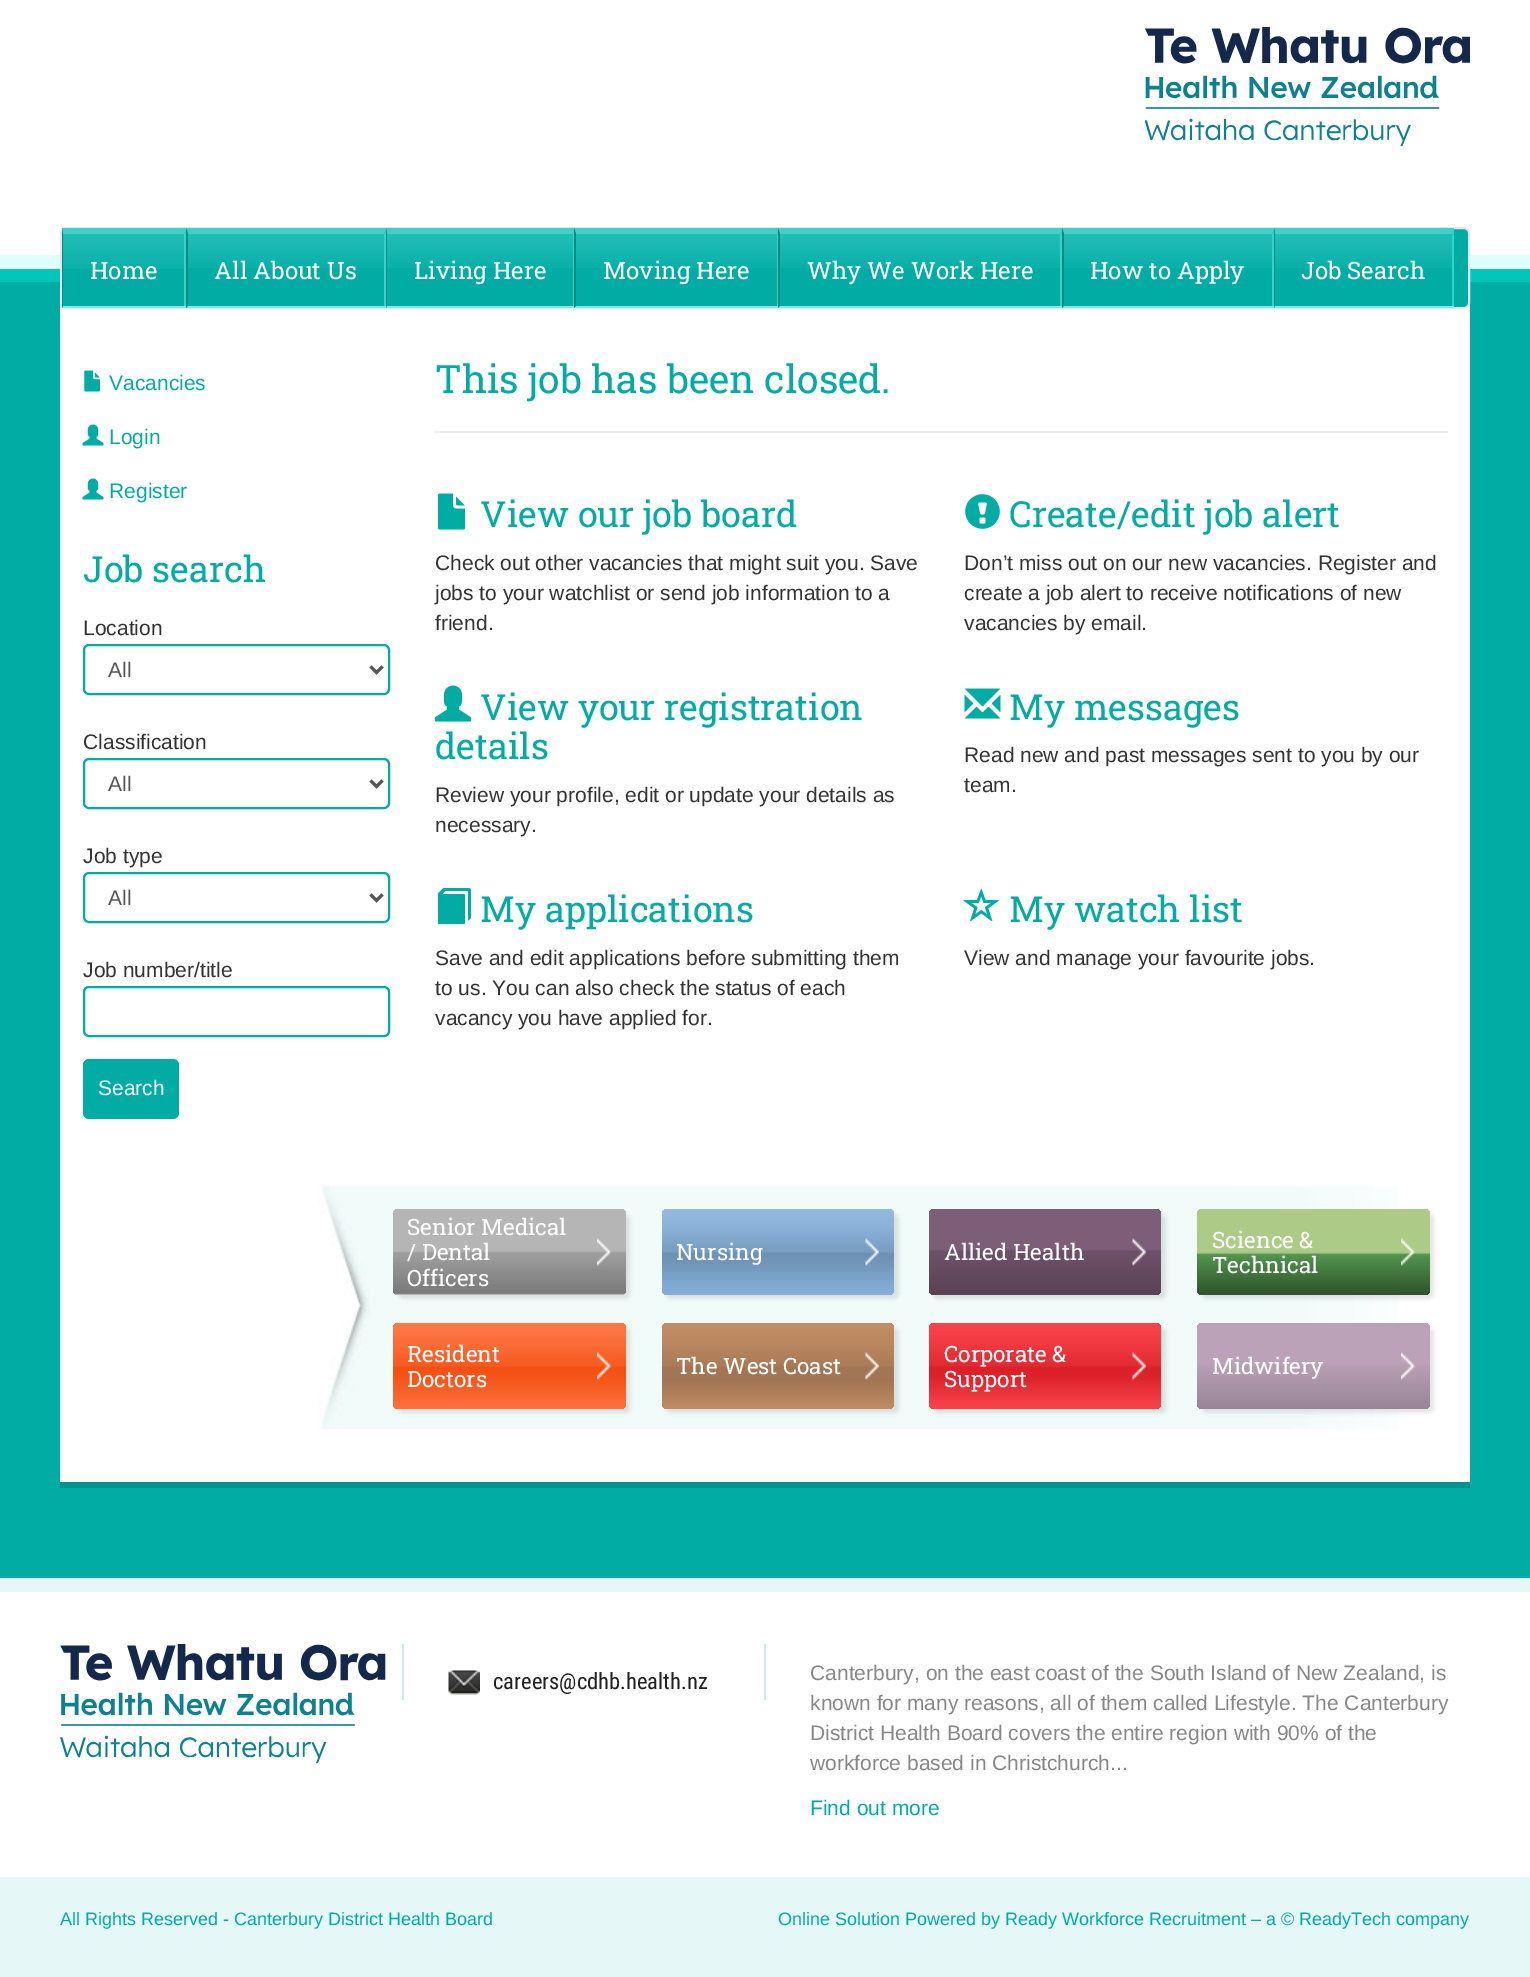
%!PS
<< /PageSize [1530 1977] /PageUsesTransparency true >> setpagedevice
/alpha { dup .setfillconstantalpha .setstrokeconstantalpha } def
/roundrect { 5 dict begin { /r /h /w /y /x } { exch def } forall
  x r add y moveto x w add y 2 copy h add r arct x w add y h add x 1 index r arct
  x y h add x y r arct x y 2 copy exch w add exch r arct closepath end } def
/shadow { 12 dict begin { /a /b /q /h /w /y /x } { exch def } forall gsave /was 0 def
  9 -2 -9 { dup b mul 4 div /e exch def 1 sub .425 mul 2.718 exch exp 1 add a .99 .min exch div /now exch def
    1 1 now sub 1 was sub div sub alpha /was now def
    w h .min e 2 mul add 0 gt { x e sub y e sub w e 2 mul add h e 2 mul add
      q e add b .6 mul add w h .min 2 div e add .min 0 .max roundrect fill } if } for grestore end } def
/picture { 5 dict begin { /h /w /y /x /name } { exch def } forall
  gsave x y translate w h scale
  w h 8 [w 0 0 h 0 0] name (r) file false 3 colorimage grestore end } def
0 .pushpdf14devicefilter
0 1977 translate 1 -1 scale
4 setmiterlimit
0 0.675 0.639 setrgbcolor
0 0 1530 1977 rectfill
1 setgray
0 0 1530 255 rectfill
0.875 1 0.992 setrgbcolor
0 255 1530 14 rectfill
(img1.rgb) 1145 27 325 120 picture
0 0.776 0.733 setrgbcolor
0 269 1530 13 rectfill
1 setgray
60 303 1410 1179 rectfill
0 0.675 0.639 setrgbcolor
61 228 1408 80 5 roundrect gsave fill grestore
0.906 setgray
2 setlinewidth
stroke
gsave newpath 63 234 moveto 184 234 lineto 184 306 lineto 63 306 lineto closepath clip newpath
<< /ShadingType 2 /ColorSpace /DeviceRGB /Coords [124 234 124 306] /Extend [true true] /Function << /FunctionType 3 /Domain [0 1] /Functions [<< /FunctionType 2 /Domain [0 1] /C0 [0.133 0.745 0.714] /C1 [0.039 0.694 0.663] /N 1 >> << /FunctionType 2 /Domain [0 1] /C0 [0.039 0.694 0.663] /C1 [0 0.675 0.639] /N 1 >> << /FunctionType 2 /Domain [0 1] /C0 [0 0.675 0.639] /C1 [0 0.675 0.639] /N 1 >>] /Bounds [0.47 0.49] /Encode [0 1 0 1 0 1] >> >> shfill grestore
0.247 0.816 0.788 setrgbcolor
newpath 62 228 moveto 186 228 lineto 184 234 lineto 63 234 lineto closepath fill
0.18 0.835 0.8 setrgbcolor
newpath 186 228 moveto 186 308 lineto 184 306 lineto 184 234 lineto closepath fill
0.494 0.922 0.902 setrgbcolor
62 306 124 2 rectfill
0 0.533 0.506 setrgbcolor
newpath 62 308 moveto 62 228 lineto 63 234 lineto 63 306 lineto closepath fill
/RobotoSlab-Regular [24 0 0 -24 0 0] selectfont
1 setgray
90 279 moveto (Home) show
gsave newpath 188 234 moveto 384 234 lineto 384 269 lineto 188 269 lineto closepath clip newpath
<< /ShadingType 2 /ColorSpace /DeviceRGB /Coords [286 234 286 306] /Extend [true true] /Function << /FunctionType 3 /Domain [0 1] /Functions [<< /FunctionType 2 /Domain [0 1] /C0 [0.133 0.745 0.714] /C1 [0.039 0.694 0.663] /N 1 >> << /FunctionType 2 /Domain [0 1] /C0 [0.039 0.694 0.663] /C1 [0 0.675 0.639] /N 1 >> << /FunctionType 2 /Domain [0 1] /C0 [0 0.675 0.639] /C1 [0 0.675 0.639] /N 1 >>] /Bounds [0.47 0.49] /Encode [0 1 0 1 0 1] >> >> shfill grestore
0.247 0.816 0.788 setrgbcolor
newpath 186 228 moveto 386 228 lineto 384 234 lineto 188 234 lineto closepath fill
0.18 0.835 0.8 setrgbcolor
newpath 386 228 moveto 386 308 lineto 384 306 lineto 384 234 lineto closepath fill
0.494 0.922 0.902 setrgbcolor
186 306 200 2 rectfill
0 0.533 0.506 setrgbcolor
newpath 186 308 moveto 186 228 lineto 188 234 lineto 188 306 lineto closepath fill
1 setgray
214 279 moveto (All About Us) show
gsave newpath 387 234 moveto 573 234 lineto 573 269 lineto 387 269 lineto closepath clip newpath
<< /ShadingType 2 /ColorSpace /DeviceRGB /Coords [480 234 480 306] /Extend [true true] /Function << /FunctionType 3 /Domain [0 1] /Functions [<< /FunctionType 2 /Domain [0 1] /C0 [0.133 0.745 0.714] /C1 [0.039 0.694 0.663] /N 1 >> << /FunctionType 2 /Domain [0 1] /C0 [0.039 0.694 0.663] /C1 [0 0.675 0.639] /N 1 >> << /FunctionType 2 /Domain [0 1] /C0 [0 0.675 0.639] /C1 [0 0.675 0.639] /N 1 >>] /Bounds [0.47 0.49] /Encode [0 1 0 1 0 1] >> >> shfill grestore
0.247 0.816 0.788 setrgbcolor
newpath 386 228 moveto 574 228 lineto 573 234 lineto 387 234 lineto closepath fill
0.18 0.835 0.8 setrgbcolor
newpath 574 228 moveto 574 308 lineto 573 306 lineto 573 234 lineto closepath fill
0.494 0.922 0.902 setrgbcolor
386 306 189 2 rectfill
0 0.533 0.506 setrgbcolor
newpath 386 308 moveto 386 228 lineto 387 234 lineto 387 306 lineto closepath fill
1 setgray
414 279 moveto (Living Here) show
gsave newpath 576 234 moveto 777 234 lineto 777 269 lineto 576 269 lineto closepath clip newpath
<< /ShadingType 2 /ColorSpace /DeviceRGB /Coords [677 234 677 306] /Extend [true true] /Function << /FunctionType 3 /Domain [0 1] /Functions [<< /FunctionType 2 /Domain [0 1] /C0 [0.133 0.745 0.714] /C1 [0.039 0.694 0.663] /N 1 >> << /FunctionType 2 /Domain [0 1] /C0 [0.039 0.694 0.663] /C1 [0 0.675 0.639] /N 1 >> << /FunctionType 2 /Domain [0 1] /C0 [0 0.675 0.639] /C1 [0 0.675 0.639] /N 1 >>] /Bounds [0.47 0.49] /Encode [0 1 0 1 0 1] >> >> shfill grestore
0.247 0.816 0.788 setrgbcolor
newpath 574 228 moveto 778 228 lineto 777 234 lineto 576 234 lineto closepath fill
0.18 0.835 0.8 setrgbcolor
newpath 778 228 moveto 778 308 lineto 777 306 lineto 777 234 lineto closepath fill
0.494 0.922 0.902 setrgbcolor
575 306 204 2 rectfill
0 0.533 0.506 setrgbcolor
newpath 574 308 moveto 574 228 lineto 576 234 lineto 576 306 lineto closepath fill
1 setgray
603 279 moveto (Moving Here) show
gsave newpath 780 234 moveto 1060 234 lineto 1060 269 lineto 780 269 lineto closepath clip newpath
<< /ShadingType 2 /ColorSpace /DeviceRGB /Coords [920 234 920 306] /Extend [true true] /Function << /FunctionType 3 /Domain [0 1] /Functions [<< /FunctionType 2 /Domain [0 1] /C0 [0.133 0.745 0.714] /C1 [0.039 0.694 0.663] /N 1 >> << /FunctionType 2 /Domain [0 1] /C0 [0.039 0.694 0.663] /C1 [0 0.675 0.639] /N 1 >> << /FunctionType 2 /Domain [0 1] /C0 [0 0.675 0.639] /C1 [0 0.675 0.639] /N 1 >>] /Bounds [0.47 0.49] /Encode [0 1 0 1 0 1] >> >> shfill grestore
0.247 0.816 0.788 setrgbcolor
newpath 778 228 moveto 1062 228 lineto 1060 234 lineto 780 234 lineto closepath fill
0.18 0.835 0.8 setrgbcolor
newpath 1062 228 moveto 1062 308 lineto 1060 306 lineto 1060 234 lineto closepath fill
0.494 0.922 0.902 setrgbcolor
779 306 283 2 rectfill
0 0.533 0.506 setrgbcolor
newpath 778 308 moveto 778 228 lineto 780 234 lineto 780 306 lineto closepath fill
1 setgray
807 279 moveto (Why We Work Here) show
gsave newpath 1064 234 moveto 1272 234 lineto 1272 269 lineto 1064 269 lineto closepath clip newpath
<< /ShadingType 2 /ColorSpace /DeviceRGB /Coords [1168 234 1168 306] /Extend [true true] /Function << /FunctionType 3 /Domain [0 1] /Functions [<< /FunctionType 2 /Domain [0 1] /C0 [0.133 0.745 0.714] /C1 [0.039 0.694 0.663] /N 1 >> << /FunctionType 2 /Domain [0 1] /C0 [0.039 0.694 0.663] /C1 [0 0.675 0.639] /N 1 >> << /FunctionType 2 /Domain [0 1] /C0 [0 0.675 0.639] /C1 [0 0.675 0.639] /N 1 >>] /Bounds [0.47 0.49] /Encode [0 1 0 1 0 1] >> >> shfill grestore
0.247 0.816 0.788 setrgbcolor
newpath 1062 228 moveto 1274 228 lineto 1272 234 lineto 1064 234 lineto closepath fill
0.18 0.835 0.8 setrgbcolor
newpath 1274 228 moveto 1274 308 lineto 1272 306 lineto 1272 234 lineto closepath fill
0.494 0.922 0.902 setrgbcolor
1062 306 212 2 rectfill
0 0.533 0.506 setrgbcolor
newpath 1062 308 moveto 1062 228 lineto 1064 234 lineto 1064 306 lineto closepath fill
1 setgray
1090 279 moveto (How to Apply) show
gsave newpath 1275 234 moveto 1452 234 lineto 1452 269 lineto 1275 269 lineto closepath clip newpath
<< /ShadingType 2 /ColorSpace /DeviceRGB /Coords [1364 234 1364 306] /Extend [true true] /Function << /FunctionType 3 /Domain [0 1] /Functions [<< /FunctionType 2 /Domain [0 1] /C0 [0.133 0.745 0.714] /C1 [0.039 0.694 0.663] /N 1 >> << /FunctionType 2 /Domain [0 1] /C0 [0.039 0.694 0.663] /C1 [0 0.675 0.639] /N 1 >> << /FunctionType 2 /Domain [0 1] /C0 [0 0.675 0.639] /C1 [0 0.675 0.639] /N 1 >>] /Bounds [0.47 0.49] /Encode [0 1 0 1 0 1] >> >> shfill grestore
0.247 0.816 0.788 setrgbcolor
newpath 1274 228 moveto 1454 228 lineto 1452 234 lineto 1275 234 lineto closepath fill
0.18 0.835 0.8 setrgbcolor
newpath 1454 228 moveto 1454 308 lineto 1452 306 lineto 1452 234 lineto closepath fill
0.494 0.922 0.902 setrgbcolor
1274 306 180 2 rectfill
0 0.533 0.506 setrgbcolor
newpath 1274 308 moveto 1274 228 lineto 1275 234 lineto 1275 306 lineto closepath fill
1 setgray
1301 279 moveto (Job Search) show
0 0.576 0.545 setrgbcolor
60 1482 1410 6 rectfill
(img2.rgb) 84 370 16 22 picture
/LiberationSans-Regular [21 0 0 -21 0 0] selectfont
0 0.675 0.639 setrgbcolor
109 390 moveto (Vacancies) show
(img3.rgb) 82 424 22 22 picture
109 444 moveto (Login) show
(img3.rgb) 82 478 22 22 picture
109 498 moveto (Register) show
/RobotoSlab-Regular [36 0 0 -36 0 0] selectfont
83 582 moveto (Job search) show
/LiberationSans-Regular [21 0 0 -21 0 0] selectfont
0.2 setgray
83 635 moveto (Location) show
0.925 setgray
newpath 88 646 moveto 384 646 lineto 386 646 388 649 388 651 curveto 388 691 lineto 389 690 389 689 389 688 curveto 389 650 lineto 389 647 387 645 384 645 curveto 89 645 lineto 86 645 84 647 84 650 curveto 84 651 lineto 84 649 86 646 88 646 curveto closepath fill
0 0.675 0.639 setrgbcolor
84 645 305 49 5 roundrect stroke
0.333 setgray
3 setlinewidth
newpath 370.5 666.5 moveto 376.5 672.5 lineto 382.5 666.5 lineto stroke
108 677 moveto (All) show
0.2 setgray
83 749 moveto (Classification) show
0.925 setgray
newpath 88 760 moveto 384 760 lineto 386 760 388 763 388 765 curveto 388 805 lineto 389 804 389 803 389 802 curveto 389 764 lineto 389 761 387 759 384 759 curveto 89 759 lineto 86 759 84 761 84 764 curveto 84 765 lineto 84 763 86 760 88 760 curveto closepath fill
0 0.675 0.639 setrgbcolor
2 setlinewidth
84 759 305 49 5 roundrect stroke
0.333 setgray
3 setlinewidth
newpath 370.5 780.5 moveto 376.5 786.5 lineto 382.5 780.5 lineto stroke
108 791 moveto (All) show
0.2 setgray
83 863 moveto (Job type) show
0.925 setgray
newpath 88 874 moveto 384 874 lineto 386 874 388 877 388 879 curveto 388 919 lineto 389 918 389 917 389 916 curveto 389 878 lineto 389 875 387 873 384 873 curveto 89 873 lineto 86 873 84 875 84 878 curveto 84 879 lineto 84 877 86 874 88 874 curveto closepath fill
0 0.675 0.639 setrgbcolor
2 setlinewidth
84 873 305 49 5 roundrect stroke
0.333 setgray
3 setlinewidth
newpath 370.5 894.5 moveto 376.5 900.5 lineto 382.5 894.5 lineto stroke
108 905 moveto (All) show
0.2 setgray
83 977 moveto (Job number/title) show
0.925 setgray
newpath 88 988 moveto 384 988 lineto 386 988 388 991 388 993 curveto 388 1033 lineto 389 1032 389 1031 389 1030 curveto 389 992 lineto 389 989 387 987 384 987 curveto 89 987 lineto 86 987 84 989 84 992 curveto 84 993 lineto 84 991 86 988 88 988 curveto closepath fill
0 0.675 0.639 setrgbcolor
2 setlinewidth
84 987 305 49 5 roundrect stroke
83 1059 96 60 6 roundrect fill
1 setgray
98 1095 moveto (Search) show
/RobotoSlab-Regular [39 0 0 -39 0 0] selectfont
0 0.675 0.639 setrgbcolor
435 393 moveto (This job has been closed.) show
0.933 setgray
435 431 1013 2 rectfill
(img4.rgb) 438 493 27 37 picture
/RobotoSlab-Regular [36 0 0 -36 0 0] selectfont
0 0.675 0.639 setrgbcolor
480 527 moveto (View our job board) show
/LiberationSans-Regular [21 0 0 -21 0 0] selectfont
0.2 setgray
435 570 moveto (Check out other vacancies that might suit you. Save) show
435 600 moveto (jobs to your watchlist or send job information to a) show
435 630 moveto (friend.) show
(img5.rgb) 965 494 35 35 picture
/RobotoSlab-Regular [36 0 0 -36 0 0] selectfont
0 0.675 0.639 setrgbcolor
1009 527 moveto (Create/edit job alert) show
/LiberationSans-Regular [21 0 0 -21 0 0] selectfont
0.2 setgray
964 570 moveto (Don’t miss out on our new vacancies. Register and) show
964 600 moveto (create a job alert to receive notifications of new) show
964 630 moveto (vacancies by email.) show
(img6.rgb) 435 685 36 37 picture
/RobotoSlab-Regular [36 0 0 -36 0 0] selectfont
0 0.675 0.639 setrgbcolor
480 720 moveto (View your registration) show
435 759 moveto (details) show
/LiberationSans-Regular [21 0 0 -21 0 0] selectfont
0.2 setgray
435 802 moveto (Review your profile, edit or update your details as) show
435 832 moveto (necessary.) show
(img7.rgb) 964 688 37 31 picture
/RobotoSlab-Regular [36 0 0 -36 0 0] selectfont
0 0.675 0.639 setrgbcolor
1009 720 moveto (My messages) show
/LiberationSans-Regular [21 0 0 -21 0 0] selectfont
0.2 setgray
964 762 moveto (Read new and past messages sent to you by our) show
964 792 moveto (team.) show
(img8.rgb) 438 888 33 36 picture
/RobotoSlab-Regular [36 0 0 -36 0 0] selectfont
0 0.675 0.639 setrgbcolor
480 922 moveto (My applications) show
/LiberationSans-Regular [21 0 0 -21 0 0] selectfont
0.2 setgray
435 965 moveto (Save and edit applications before submitting them) show
435 995 moveto (to us. You can also check the status of each) show
435 1025 moveto (vacancy you have applied for.) show
(img9.rgb) 963 888 36 34 picture
/RobotoSlab-Regular [36 0 0 -36 0 0] selectfont
0 0.675 0.639 setrgbcolor
1009 922 moveto (My watch list) show
/LiberationSans-Regular [21 0 0 -21 0 0] selectfont
0.2 setgray
964 965 moveto (View and manage your favourite jobs.) show
(img10.rgb) 318 1184 1080 246 picture
0 setgray
398 1214 232 85 5 2 0.1 shadow
gsave 393 1209 233 86 5 roundrect clip newpath
<< /ShadingType 2 /ColorSpace /DeviceRGB /Coords [509 1209 509 1295] /Extend [true true] /Function << /FunctionType 3 /Domain [0 1] /Functions [<< /FunctionType 2 /Domain [0 1] /C0 [0.71 0.71 0.71] /C1 [0.71 0.71 0.71] /N 1 >> << /FunctionType 2 /Domain [0 1] /C0 [0.71 0.71 0.71] /C1 [0.702 0.702 0.702] /N 1 >> << /FunctionType 2 /Domain [0 1] /C0 [0.702 0.702 0.702] /C1 [0.624 0.624 0.624] /N 1 >> << /FunctionType 2 /Domain [0 1] /C0 [0.624 0.624 0.624] /C1 [0.478 0.478 0.478] /N 1 >> << /FunctionType 2 /Domain [0 1] /C0 [0.478 0.478 0.478] /C1 [0.71 0.71 0.71] /N 1 >>] /Bounds [0.47 0.49 0.51 0.98] /Encode [0 1 0 1 0 1 0 1 0 1] >> >> shfill grestore
/RobotoSlab-Regular [22.5 0 0 -22.5 0 0] selectfont
1 setgray
407 1235 moveto (Senior Medical) show
407 1260 moveto (/ Dental) show
(img11.rgb) 597 1238 14 28 picture
407 1286 moveto (Officers) show
0 setgray
666 1214 233 85 5 2 0.1 shadow
gsave 662 1209 232 86 5 roundrect clip newpath
<< /ShadingType 2 /ColorSpace /DeviceRGB /Coords [778 1209 778 1295] /Extend [true true] /Function << /FunctionType 3 /Domain [0 1] /Functions [<< /FunctionType 2 /Domain [0 1] /C0 [0.58 0.737 0.894] /C1 [0.545 0.702 0.851] /N 1 >> << /FunctionType 2 /Domain [0 1] /C0 [0.545 0.702 0.851] /C1 [0.467 0.612 0.753] /N 1 >> << /FunctionType 2 /Domain [0 1] /C0 [0.467 0.612 0.753] /C1 [0.427 0.569 0.702] /N 1 >> << /FunctionType 2 /Domain [0 1] /C0 [0.427 0.569 0.702] /C1 [0.443 0.588 0.725] /N 1 >> << /FunctionType 2 /Domain [0 1] /C0 [0.443 0.588 0.725] /C1 [0.506 0.667 0.824] /N 1 >> << /FunctionType 2 /Domain [0 1] /C0 [0.506 0.667 0.824] /C1 [0.522 0.69 0.851] /N 1 >>] /Bounds [0.2 0.5 0.52 0.63 0.89] /Encode [0 1 0 1 0 1 0 1 0 1 0 1] >> >> shfill grestore
1 setgray
676 1260 moveto (Nursing) show
(img12.rgb) 865 1238 14 28 picture
0 setgray
933 1214 233 85 5 2 0.1 shadow
gsave 929 1209 232 86 5 roundrect clip newpath
<< /ShadingType 2 /ColorSpace /DeviceRGB /Coords [1045 1209 1045 1295] /Extend [true true] /Function << /FunctionType 3 /Domain [0 1] /Functions [<< /FunctionType 2 /Domain [0 1] /C0 [0.486 0.369 0.471] /C1 [0.486 0.369 0.471] /N 1 >> << /FunctionType 2 /Domain [0 1] /C0 [0.486 0.369 0.471] /C1 [0.427 0.318 0.408] /N 1 >> << /FunctionType 2 /Domain [0 1] /C0 [0.427 0.318 0.408] /C1 [0.357 0.259 0.341] /N 1 >>] /Bounds [0.47 0.49] /Encode [0 1 0 1 0 1] >> >> shfill grestore
1 setgray
944 1260 moveto (Allied Health) show
(img13.rgb) 1132 1238 14 28 picture
0 setgray
1202 1214 232 85 5 2 0.1 shadow
gsave 1197 1209 233 86 5 roundrect clip newpath
<< /ShadingType 2 /ColorSpace /DeviceRGB /Coords [1313 1209 1313 1295] /Extend [true true] /Function << /FunctionType 3 /Domain [0 1] /Functions [<< /FunctionType 2 /Domain [0 1] /C0 [0.678 0.792 0.529] /C1 [0.675 0.796 0.529] /N 1 >> << /FunctionType 2 /Domain [0 1] /C0 [0.675 0.796 0.529] /C1 [0.659 0.773 0.51] /N 1 >> << /FunctionType 2 /Domain [0 1] /C0 [0.659 0.773 0.51] /C1 [0.314 0.588 0.306] /N 1 >> << /FunctionType 2 /Domain [0 1] /C0 [0.314 0.588 0.306] /C1 [0.314 0.569 0.302] /N 1 >> << /FunctionType 2 /Domain [0 1] /C0 [0.314 0.569 0.302] /C1 [0.31 0.569 0.29] /N 1 >> << /FunctionType 2 /Domain [0 1] /C0 [0.31 0.569 0.29] /C1 [0.31 0.553 0.298] /N 1 >> << /FunctionType 2 /Domain [0 1] /C0 [0.31 0.553 0.298] /C1 [0.259 0.471 0.243] /N 1 >> << /FunctionType 2 /Domain [0 1] /C0 [0.259 0.471 0.243] /C1 [0.196 0.345 0.184] /N 1 >> << /FunctionType 2 /Domain [0 1] /C0 [0.196 0.345 0.184] /C1 [0.18 0.333 0.161] /N 1 >>] /Bounds [0.49 0.51 0.53 0.55 0.57 0.58 0.74 0.96] /Encode [0 1 0 1 0 1 0 1 0 1 0 1 0 1 0 1 0 1] >> >> shfill grestore
1 setgray
1212 1248 moveto (Science &) show
(img14.rgb) 1401 1238 14 28 picture
1212 1273 moveto (Technical) show
0 setgray
398 1328 232 85 5 2 0.1 shadow
gsave 393 1323 233 86 5 roundrect clip newpath
<< /ShadingType 2 /ColorSpace /DeviceRGB /Coords [509 1323 509 1409] /Extend [true true] /Function << /FunctionType 3 /Domain [0 1] /Functions [<< /FunctionType 2 /Domain [0 1] /C0 [1 0.475 0.278] /C1 [0.992 0.447 0.243] /N 1 >> << /FunctionType 2 /Domain [0 1] /C0 [0.992 0.447 0.243] /C1 [0.965 0.353 0.125] /N 1 >> << /FunctionType 2 /Domain [0 1] /C0 [0.965 0.353 0.125] /C1 [0.953 0.31 0.071] /N 1 >> << /FunctionType 2 /Domain [0 1] /C0 [0.953 0.31 0.071] /C1 [0.961 0.345 0.114] /N 1 >> << /FunctionType 2 /Domain [0 1] /C0 [0.961 0.345 0.114] /C1 [0.992 0.447 0.247] /N 1 >>] /Bounds [0.16 0.5 0.52 0.68] /Encode [0 1 0 1 0 1 0 1 0 1] >> >> shfill grestore
1 setgray
407 1362 moveto (Resident) show
(img15.rgb) 597 1352 14 28 picture
407 1387 moveto (Doctors) show
0 setgray
666 1328 233 85 5 2 0.1 shadow
gsave 662 1323 232 86 5 roundrect clip newpath
<< /ShadingType 2 /ColorSpace /DeviceRGB /Coords [778 1323 778 1409] /Extend [true true] /Function << /FunctionType 3 /Domain [0 1] /Functions [<< /FunctionType 2 /Domain [0 1] /C0 [0.765 0.557 0.392] /C1 [0.729 0.529 0.373] /N 1 >> << /FunctionType 2 /Domain [0 1] /C0 [0.729 0.529 0.373] /C1 [0.671 0.486 0.349] /N 1 >> << /FunctionType 2 /Domain [0 1] /C0 [0.671 0.486 0.349] /C1 [0.667 0.482 0.345] /N 1 >> << /FunctionType 2 /Domain [0 1] /C0 [0.667 0.482 0.345] /C1 [0.635 0.459 0.329] /N 1 >> << /FunctionType 2 /Domain [0 1] /C0 [0.635 0.459 0.329] /C1 [0.635 0.459 0.329] /N 1 >> << /FunctionType 2 /Domain [0 1] /C0 [0.635 0.459 0.329] /C1 [0.647 0.467 0.333] /N 1 >> << /FunctionType 2 /Domain [0 1] /C0 [0.647 0.467 0.333] /C1 [0.753 0.549 0.384] /N 1 >>] /Bounds [0.23 0.48 0.5 0.52 0.66 0.71] /Encode [0 1 0 1 0 1 0 1 0 1 0 1 0 1] >> >> shfill grestore
1 setgray
676 1374 moveto (The West Coast) show
(img16.rgb) 865 1352 14 28 picture
0 setgray
933 1328 233 85 5 2 0.1 shadow
gsave 929 1323 232 86 5 roundrect clip newpath
<< /ShadingType 2 /ColorSpace /DeviceRGB /Coords [1045 1323 1045 1409] /Extend [true true] /Function << /FunctionType 3 /Domain [0 1] /Functions [<< /FunctionType 2 /Domain [0 1] /C0 [0.98 0.263 0.29] /C1 [0.965 0.247 0.278] /N 1 >> << /FunctionType 2 /Domain [0 1] /C0 [0.965 0.247 0.278] /C1 [0.89 0.169 0.2] /N 1 >> << /FunctionType 2 /Domain [0 1] /C0 [0.89 0.169 0.2] /C1 [0.886 0.161 0.196] /N 1 >> << /FunctionType 2 /Domain [0 1] /C0 [0.886 0.161 0.196] /C1 [0.855 0.129 0.161] /N 1 >> << /FunctionType 2 /Domain [0 1] /C0 [0.855 0.129 0.161] /C1 [0.867 0.141 0.176] /N 1 >> << /FunctionType 2 /Domain [0 1] /C0 [0.867 0.141 0.176] /C1 [0.945 0.227 0.259] /N 1 >> << /FunctionType 2 /Domain [0 1] /C0 [0.945 0.227 0.259] /C1 [0.976 0.259 0.286] /N 1 >>] /Bounds [0.13 0.48 0.5 0.52 0.63 0.88] /Encode [0 1 0 1 0 1 0 1 0 1 0 1 0 1] >> >> shfill grestore
1 setgray
944 1362 moveto (Corporate &) show
(img17.rgb) 1132 1352 14 28 picture
944 1387 moveto (Support) show
0 setgray
1202 1328 232 85 5 2 0.1 shadow
gsave 1197 1323 233 86 5 roundrect clip newpath
<< /ShadingType 2 /ColorSpace /DeviceRGB /Coords [1313 1323 1313 1409] /Extend [true true] /Function << /FunctionType 3 /Domain [0 1] /Functions [<< /FunctionType 2 /Domain [0 1] /C0 [0.733 0.635 0.722] /C1 [0.733 0.635 0.722] /N 1 >> << /FunctionType 2 /Domain [0 1] /C0 [0.733 0.635 0.722] /C1 [0.722 0.624 0.71] /N 1 >> << /FunctionType 2 /Domain [0 1] /C0 [0.722 0.624 0.71] /C1 [0.6 0.518 0.592] /N 1 >>] /Bounds [0.47 0.49] /Encode [0 1 0 1 0 1] >> >> shfill grestore
1 setgray
1212 1374 moveto (Midwifery) show
(img18.rgb) 1401 1352 14 28 picture
0 1592 1530 285 rectfill
0.898 0.969 0.965 setrgbcolor
0 1578 1530 14 rectfill
(img19.rgb) 60 1644 326 120 picture
0.8 0.918 0.91 setrgbcolor
764 1644 2 56 rectfill
402 1644 2 56 rectfill
(img20.rgb) 448 1670 32 25 picture
/RobotoCondensed-Regular [22.5 0 0 -22.5 0 0] selectfont
0.129 setgray
493 1689 moveto (careers@cdhb.health.nz) show
/LiberationSans-Regular [21 0 0 -21 0 0] selectfont
0.529 setgray
810 1680 moveto (Canterbury, on the east coast of the South Island of New Zealand, is) show
810 1710 moveto (known for many reasons, all of them called Lifestyle. The Canterbury) show
810 1740 moveto (District Health Board covers the entire region with 90% of the) show
810 1770 moveto (workforce based in Christchurch...) show
0 0.675 0.639 setrgbcolor
810 1815 moveto (Find out more) show
0.898 0.969 0.965 setrgbcolor
0 1877 1530 100 rectfill
/LiberationSans-Regular [18 0 0 -18 0 0] selectfont
0 0.675 0.639 setrgbcolor
60 1925 moveto (All Rights Reserved - Canterbury District Health Board) show
778 1925 moveto (Online Solution Powered by Ready Workforce Recruitment – a © ReadyTech company) show
.poppdf14devicefilter showpage
